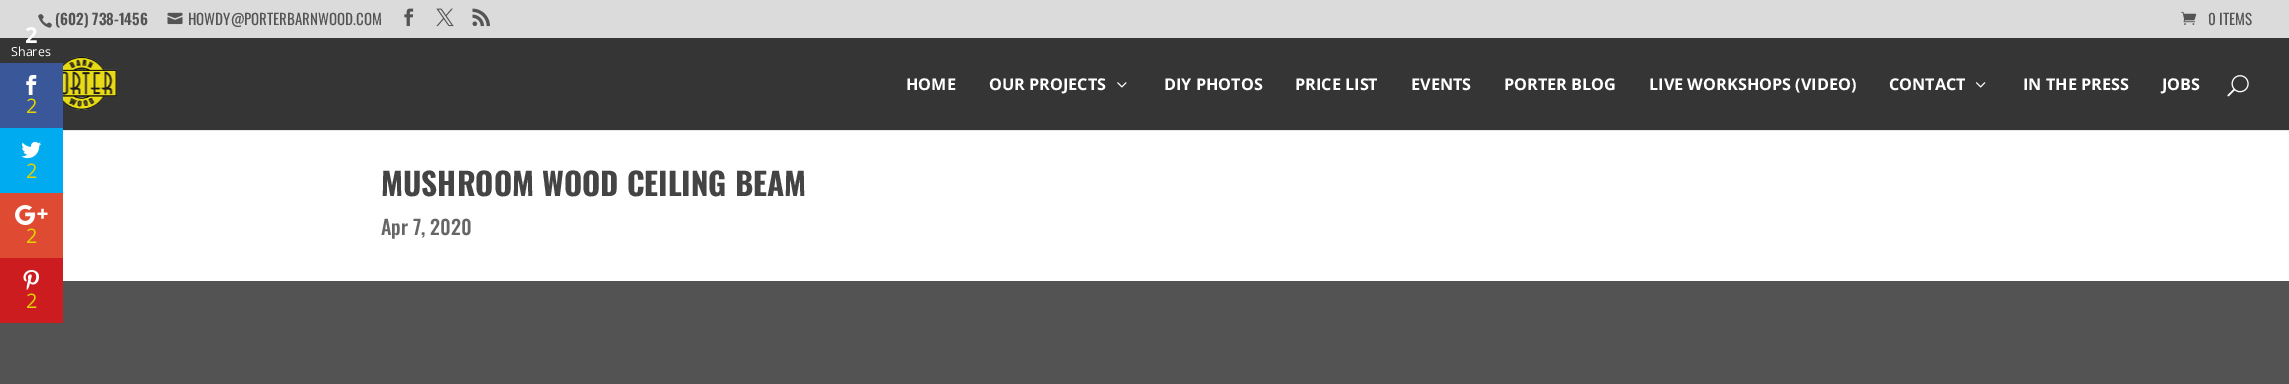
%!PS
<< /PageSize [2289 384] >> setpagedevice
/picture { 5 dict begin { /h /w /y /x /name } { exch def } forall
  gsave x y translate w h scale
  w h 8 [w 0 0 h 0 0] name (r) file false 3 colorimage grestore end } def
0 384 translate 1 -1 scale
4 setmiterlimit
1 setgray
0 0 2289 384 rectfill
0.859 setgray
0 0 2289 38 rectfill
0.208 setgray
0 38 2289 92 rectfill
/OpenSans-Bold [22 0 0 -22 0 0] selectfont
1 setgray
25 43 moveto (2) show
/OpenSans-Regular [12.5 0 0 -12.5 0 0] selectfont
11 56 moveto (Shares) show
0.227 0.341 0.604 setrgbcolor
0 63 63 65 rectfill
(img1.rgb) 26 75 11 20 picture
/OpenSans-Regular [20 0 0 -20 0 0] selectfont
0.886 0.827 0 setrgbcolor
26 113 moveto (2) show
0 0.671 0.941 setrgbcolor
0 128 63 65 rectfill
(img2.rgb) 21 141 21 18 picture
0.886 0.827 0 setrgbcolor
26 178 moveto (2) show
0.875 0.29 0.196 setrgbcolor
0 193 63 65 rectfill
(img3.rgb) 15 205 33 20 picture
0.886 0.827 0 setrgbcolor
26 243 moveto (2) show
0.325 setgray
0 281 2289 103 rectfill
0.804 0.11 0.122 setrgbcolor
0 258 63 65 rectfill
(img4.rgb) 23 270 16 20 picture
0.886 0.827 0 setrgbcolor
26 308 moveto (2) show
(img5.rgb) 38 14 14 14 picture
/Oswald-SemiBold [15 0 0 -15 0 0] selectfont
0.329 setgray
55 25 moveto (\(602\) 738-1456) show
(img6.rgb) 167 12 16 13 picture
/Oswald-Regular [15 0 0 -15 0 0] selectfont
188 25 moveto (HOWDY@PORTERBARNWOOD.COM) show
(img7.rgb) 404 8 10 19 picture
(img8.rgb) 436 8 18 19 picture
(img9.rgb) 472 8 18 19 picture
(img10.rgb) 2181 11 16 14 picture
2208 25 moveto (0 ITEMS) show
0.902 setgray
63 130 2226 1 rectfill
(img11.rgb) 63 56 55 54 picture
/OpenSans-Bold [16.25 0 0 -16.25 0 0] selectfont
1 setgray
906 90 moveto (HOME) show
989 90 moveto (OUR PROJECTS) show
(img12.rgb) 1117 82 10 6 picture
1164 90 moveto (DIY PHOTOS) show
1295 90 moveto (PRICE LIST) show
1411 90 moveto (EVENTS) show
1504 90 moveto (PORTER BLOG) show
1649 90 moveto (LIVE WORKSHOPS \(VIDEO\)) show
1889 90 moveto (CONTACT) show
(img13.rgb) 1976 82 10 6 picture
2023 90 moveto (IN THE PRESS) show
2162 90 moveto (JOBS) show
(img14.rgb) 2227 75 22 22 picture
/Oswald-Bold [31.25 0 0 -31.25 0 0] selectfont
0.267 setgray
381 196 moveto (MUSHROOM WOOD CEILING BEAM) show
/Oswald-Medium [20 0 0 -20 0 0] selectfont
0.4 setgray
381 235 moveto (Apr 7, 2020) show
showpage
